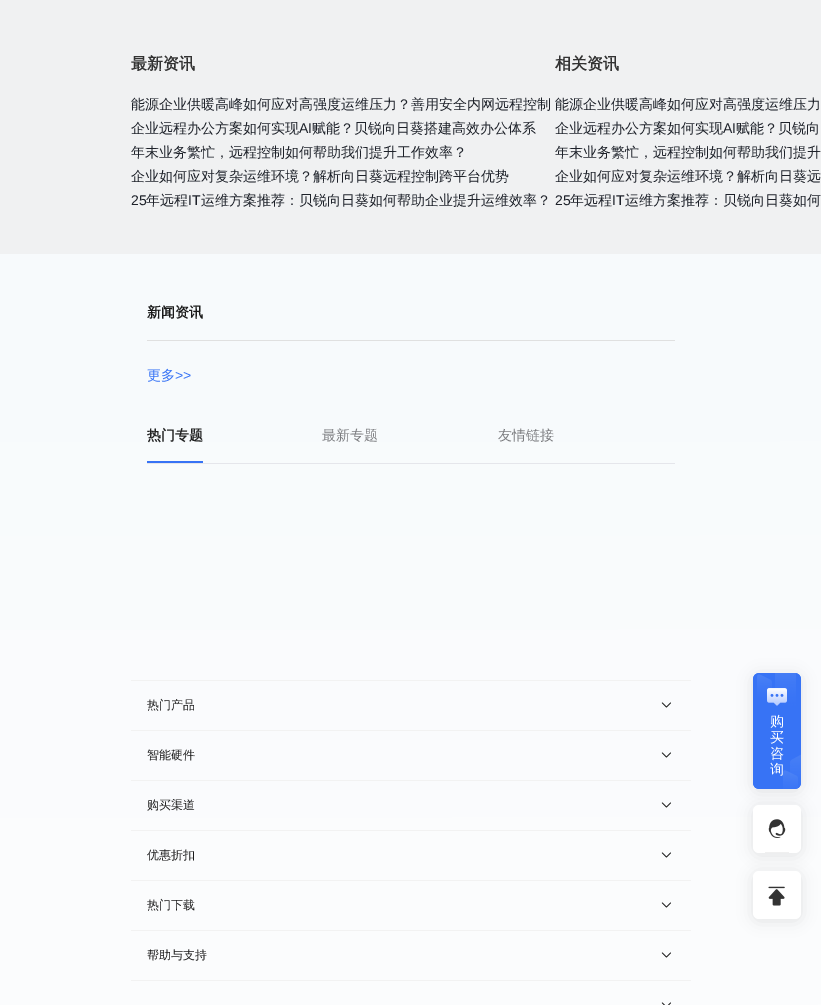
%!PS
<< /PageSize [821 1005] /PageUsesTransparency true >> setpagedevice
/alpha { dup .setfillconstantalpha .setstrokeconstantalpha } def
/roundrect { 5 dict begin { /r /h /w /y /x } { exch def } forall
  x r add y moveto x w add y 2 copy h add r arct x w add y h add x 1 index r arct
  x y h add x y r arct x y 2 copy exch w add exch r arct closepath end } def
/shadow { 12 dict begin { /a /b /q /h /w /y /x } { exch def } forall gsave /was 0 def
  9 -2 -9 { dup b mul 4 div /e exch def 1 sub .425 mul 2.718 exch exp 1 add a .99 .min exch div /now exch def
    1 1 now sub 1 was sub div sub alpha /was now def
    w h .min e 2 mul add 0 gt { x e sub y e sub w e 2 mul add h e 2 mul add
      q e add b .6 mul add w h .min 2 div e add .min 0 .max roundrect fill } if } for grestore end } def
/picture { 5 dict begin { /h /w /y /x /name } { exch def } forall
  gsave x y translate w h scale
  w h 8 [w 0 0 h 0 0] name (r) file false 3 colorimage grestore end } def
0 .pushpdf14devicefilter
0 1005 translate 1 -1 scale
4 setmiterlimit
0.941 0.945 0.949 setrgbcolor
0 0 821 1005 rectfill
/WenQuanYiZenHei-Bold [16 0 0 -16 0 0] selectfont
0.2 setgray
131 69 moveto (最新资讯) show
/WenQuanYiZenHei-Medium [14 0 0 -14 0 0] selectfont
0.114 0.129 0.161 setrgbcolor
131 109 moveto (能源企业供暖高峰如何应对高强度运维压力？善用安全内网远程控制 能源企业供暖高峰如何应对高强度运维压力) show
131 133 moveto (企业远程办公方案如何实现) show
/LiberationSans-Regular [14 0 0 -14 0 0] selectfont
299 133 moveto (AI) show
/WenQuanYiZenHei-Medium [14 0 0 -14 0 0] selectfont
312 133 moveto (赋能？贝锐向日葵搭建高效办公体系) show
131 157 moveto (年末业务繁忙，远程控制如何帮助我们提升工作效率？) show
131 181 moveto (企业如何应对复杂运维环境？解析向日葵远程控制跨平台优势) show
/LiberationSans-Regular [14 0 0 -14 0 0] selectfont
131 205 moveto (25) show
/WenQuanYiZenHei-Medium [14 0 0 -14 0 0] selectfont
146 205 moveto (年远程) show
/LiberationSans-Regular [14 0 0 -14 0 0] selectfont
188 205 moveto (IT) show
/WenQuanYiZenHei-Medium [14 0 0 -14 0 0] selectfont
201 205 moveto (运维方案推荐：贝锐向日葵如何帮助企业提升运维效率？) show
/WenQuanYiZenHei-Bold [16 0 0 -16 0 0] selectfont
0.2 setgray
555 69 moveto (相关资讯) show
/WenQuanYiZenHei-Medium [14 0 0 -14 0 0] selectfont
0.114 0.129 0.161 setrgbcolor
555 133 moveto (企业远程办公方案如何实现) show
/LiberationSans-Regular [14 0 0 -14 0 0] selectfont
723 133 moveto (AI) show
/WenQuanYiZenHei-Medium [14 0 0 -14 0 0] selectfont
736 133 moveto (赋能？贝锐向) show
555 157 moveto (年末业务繁忙，远程控制如何帮助我们提升) show
555 181 moveto (企业如何应对复杂运维环境？解析向日葵远) show
/LiberationSans-Regular [14 0 0 -14 0 0] selectfont
555 205 moveto (25) show
/WenQuanYiZenHei-Medium [14 0 0 -14 0 0] selectfont
570 205 moveto (年远程) show
/LiberationSans-Regular [14 0 0 -14 0 0] selectfont
612 205 moveto (IT) show
/WenQuanYiZenHei-Medium [14 0 0 -14 0 0] selectfont
625 205 moveto (运维方案推荐：贝锐向日葵如何) show
gsave newpath 0 254 moveto 821 254 lineto 821 1005 lineto 0 1005 lineto closepath clip newpath
<< /ShadingType 2 /ColorSpace /DeviceRGB /Coords [410 254 411 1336] /Extend [true true] /Function << /FunctionType 3 /Domain [0 1] /Functions [<< /FunctionType 2 /Domain [0 1] /C0 [0.969 0.98 0.988] /C1 [0.969 0.98 0.988] /N 1 >> << /FunctionType 2 /Domain [0 1] /C0 [0.969 0.98 0.988] /C1 [1 1 1] /N 1 >>] /Bounds [0.06] /Encode [0 1 0 1] >> >> shfill grestore
0.878 setgray
147 340 528 1 rectfill
/WenQuanYiZenHei-Bold [14 0 0 -14 0 0] selectfont
0.102 setgray
147 317 moveto (新闻资讯) show
/WenQuanYiZenHei-Medium [14 0 0 -14 0 0] selectfont
0.216 0.451 0.961 setrgbcolor
147 380 moveto (更多) show
/LiberationSans-Regular [14 0 0 -14 0 0] selectfont
175 380 moveto (>>) show
0.898 0.902 0.922 setrgbcolor
147 463 528 1 rectfill
/WenQuanYiZenHei-Bold [14 0 0 -14 0 0] selectfont
0.133 setgray
147 440 moveto (热门专题) show
0.216 0.451 0.961 setrgbcolor
147 461 56 2 rectfill
/WenQuanYiZenHei-Medium [14 0 0 -14 0 0] selectfont
0.486 0.49 0.502 setrgbcolor
322 440 moveto (最新专题) show
498 440 moveto (友情链接) show
0.949 setgray
131 680 560 1 rectfill
131 730 560 1 rectfill
/WenQuanYiZenHei-Medium [12 0 0 -12 0 0] selectfont
0.102 setgray
147 709 moveto (热门产品) show
(img1.rgb) 661 702 10 6 picture
0.949 setgray
131 780 560 1 rectfill
0.102 setgray
147 759 moveto (智能硬件) show
(img1.rgb) 661 752 10 6 picture
0.949 setgray
131 830 560 1 rectfill
0.102 setgray
147 809 moveto (购买渠道) show
(img2.rgb) 661 802 10 6 picture
0.949 setgray
131 880 560 1 rectfill
0.102 setgray
147 859 moveto (优惠折扣) show
(img3.rgb) 661 852 10 6 picture
0.949 setgray
131 930 560 1 rectfill
0.102 setgray
147 909 moveto (热门下载) show
(img4.rgb) 661 902 10 6 picture
0.949 setgray
131 980 560 1 rectfill
0.102 setgray
147 959 moveto (帮助与支持) show
(img4.rgb) 661 952 10 6 picture
(img5.rgb) 661 1002 10 3 picture
0 setgray
753 675 48 116 6 7.5 0.1 shadow
753 807 48 48 6 7.5 0.1 shadow
(img6.rgb) 753 673 48 116 picture
(img7.rgb) 767 688 20 18 picture
/WenQuanYiZenHei-Medium [14 0 0 -14 0 0] selectfont
1 setgray
770 726 moveto (购) show
770 742 moveto (买) show
770 758 moveto (咨) show
770 774 moveto (询) show
753 805 48 48 6 roundrect fill
(img8.rgb) 768 819 18 19 picture
0.941 setgray
765 852 24 1 rectfill
0 setgray
753 873 48 48 6 7.5 0.1 shadow
1 setgray
753 871 48 48 6 roundrect fill
(img9.rgb) 768 886 17 20 picture
.poppdf14devicefilter showpage
